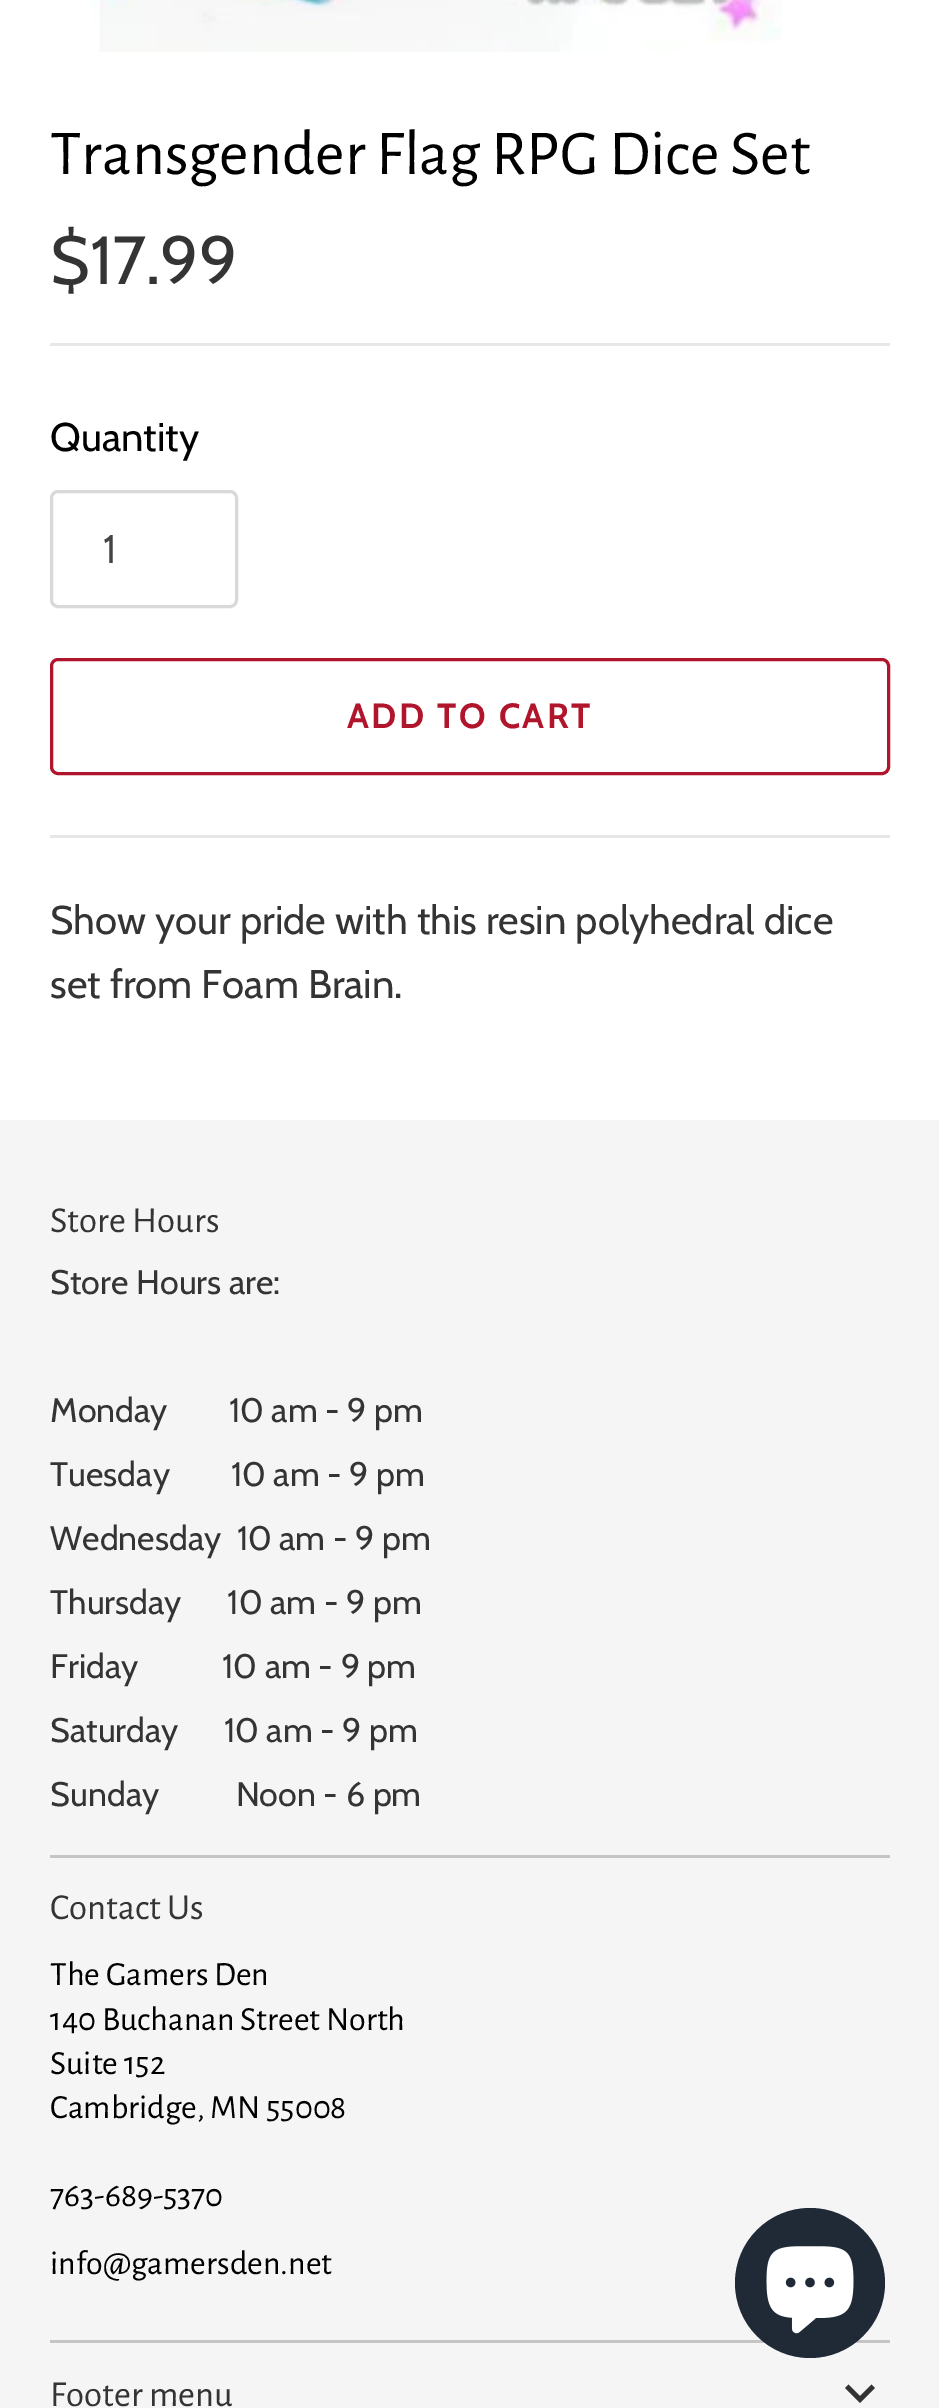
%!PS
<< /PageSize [939 2408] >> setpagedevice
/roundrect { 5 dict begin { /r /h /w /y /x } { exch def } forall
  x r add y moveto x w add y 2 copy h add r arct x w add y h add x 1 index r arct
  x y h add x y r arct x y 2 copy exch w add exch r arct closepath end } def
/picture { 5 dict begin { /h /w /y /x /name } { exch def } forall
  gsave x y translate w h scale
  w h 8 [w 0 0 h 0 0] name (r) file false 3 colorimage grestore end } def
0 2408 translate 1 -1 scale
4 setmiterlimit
1 setgray
0 0 939 2408 rectfill
(img1.rgb) 89 0 693 52 picture
/AlegreyaSans-Regular [64 0 0 -64 0 0] selectfont
0 setgray
50 174 moveto (Transgender Flag RPG Dice Set) show
/Cabin-Regular [68 0 0 -68 0 0] selectfont
0.204 setgray
50 284 moveto ($17.99) show
0.906 setgray
50 343 840 3 rectfill
/Cabin-Regular [40 0 0 -40 0 0] selectfont
0 setgray
50 451 moveto (Quantity) show
0.851 setgray
3 setlinewidth
51.5 491.5 185 115 6.5 roundrect stroke
0.267 setgray
103 563 moveto (1) show
0.694 0.082 0.169 setrgbcolor
51.5 659.5 837 114 6.5 roundrect stroke
/Cabin-Bold [35 0 0 -35 0 0] selectfont
347 728 moveto 2.5 0 (ADD TO CART) ashow
0.906 setgray
50 835 840 3 rectfill
/Cabin-Regular [40 0 0 -40 0 0] selectfont
0.204 setgray
50 934 moveto (Show your pride with this resin polyhedral dice) show
50 998 moveto (set from Foam Brain.) show
0.961 setgray
0 1120 939 1288 rectfill
0.773 setgray
50 1855 840 3 rectfill
/AlegreyaSans-Regular [36.75 0 0 -36.75 0 0] selectfont
0.204 setgray
50 1232 moveto (Store Hours) show
/Cabin-Regular [34 0 0 -34 0 0] selectfont
50 1294 moveto (Store Hours are:) show
50 1422 moveto (Monday        10 am - 9 pm) show
50 1486 moveto (Tuesday        10 am - 9 pm) show
50 1550 moveto (Wednesday  10 am - 9 pm) show
50 1614 moveto (Thursday      10 am - 9 pm) show
50 1678 moveto (Friday           10 am - 9 pm) show
50 1742 moveto (Saturday) show
224 1742 moveto (10 am - 9 pm) show
50 1806 moveto (Sunday          Noon - 6 pm) show
0.773 setgray
50 2340 840 3 rectfill
/AlegreyaSans-Regular [36.75 0 0 -36.75 0 0] selectfont
0.204 setgray
50 1919 moveto (Contact Us) show
/AlegreyaSans-Regular [34 0 0 -34 0 0] selectfont
0 setgray
50 1985 moveto (The Gamers Den) show
50 2030 moveto (140 Buchanan Street North) show
50 2074 moveto (Suite 152) show
50 2118 moveto (Cambridge, MN 55008) show
50 2206 moveto (763-689-5370) show
50 2274 moveto (info@gamersden.net) show
/AlegreyaSans-Regular [36.75 0 0 -36.75 0 0] selectfont
0.204 setgray
50 2406 moveto (Footer menu) show
0.2 setgray
newpath 848.5 2384.5 moveto 860 2396 lineto 871.5 2384.5 lineto 875 2388 lineto 860 2403 lineto 845 2388 lineto closepath fill
0.125 0.165 0.212 setrgbcolor
newpath 810 2283 75 0 360 arc closepath fill
(img2.rgb) 766 2246 88 88 picture
showpage
